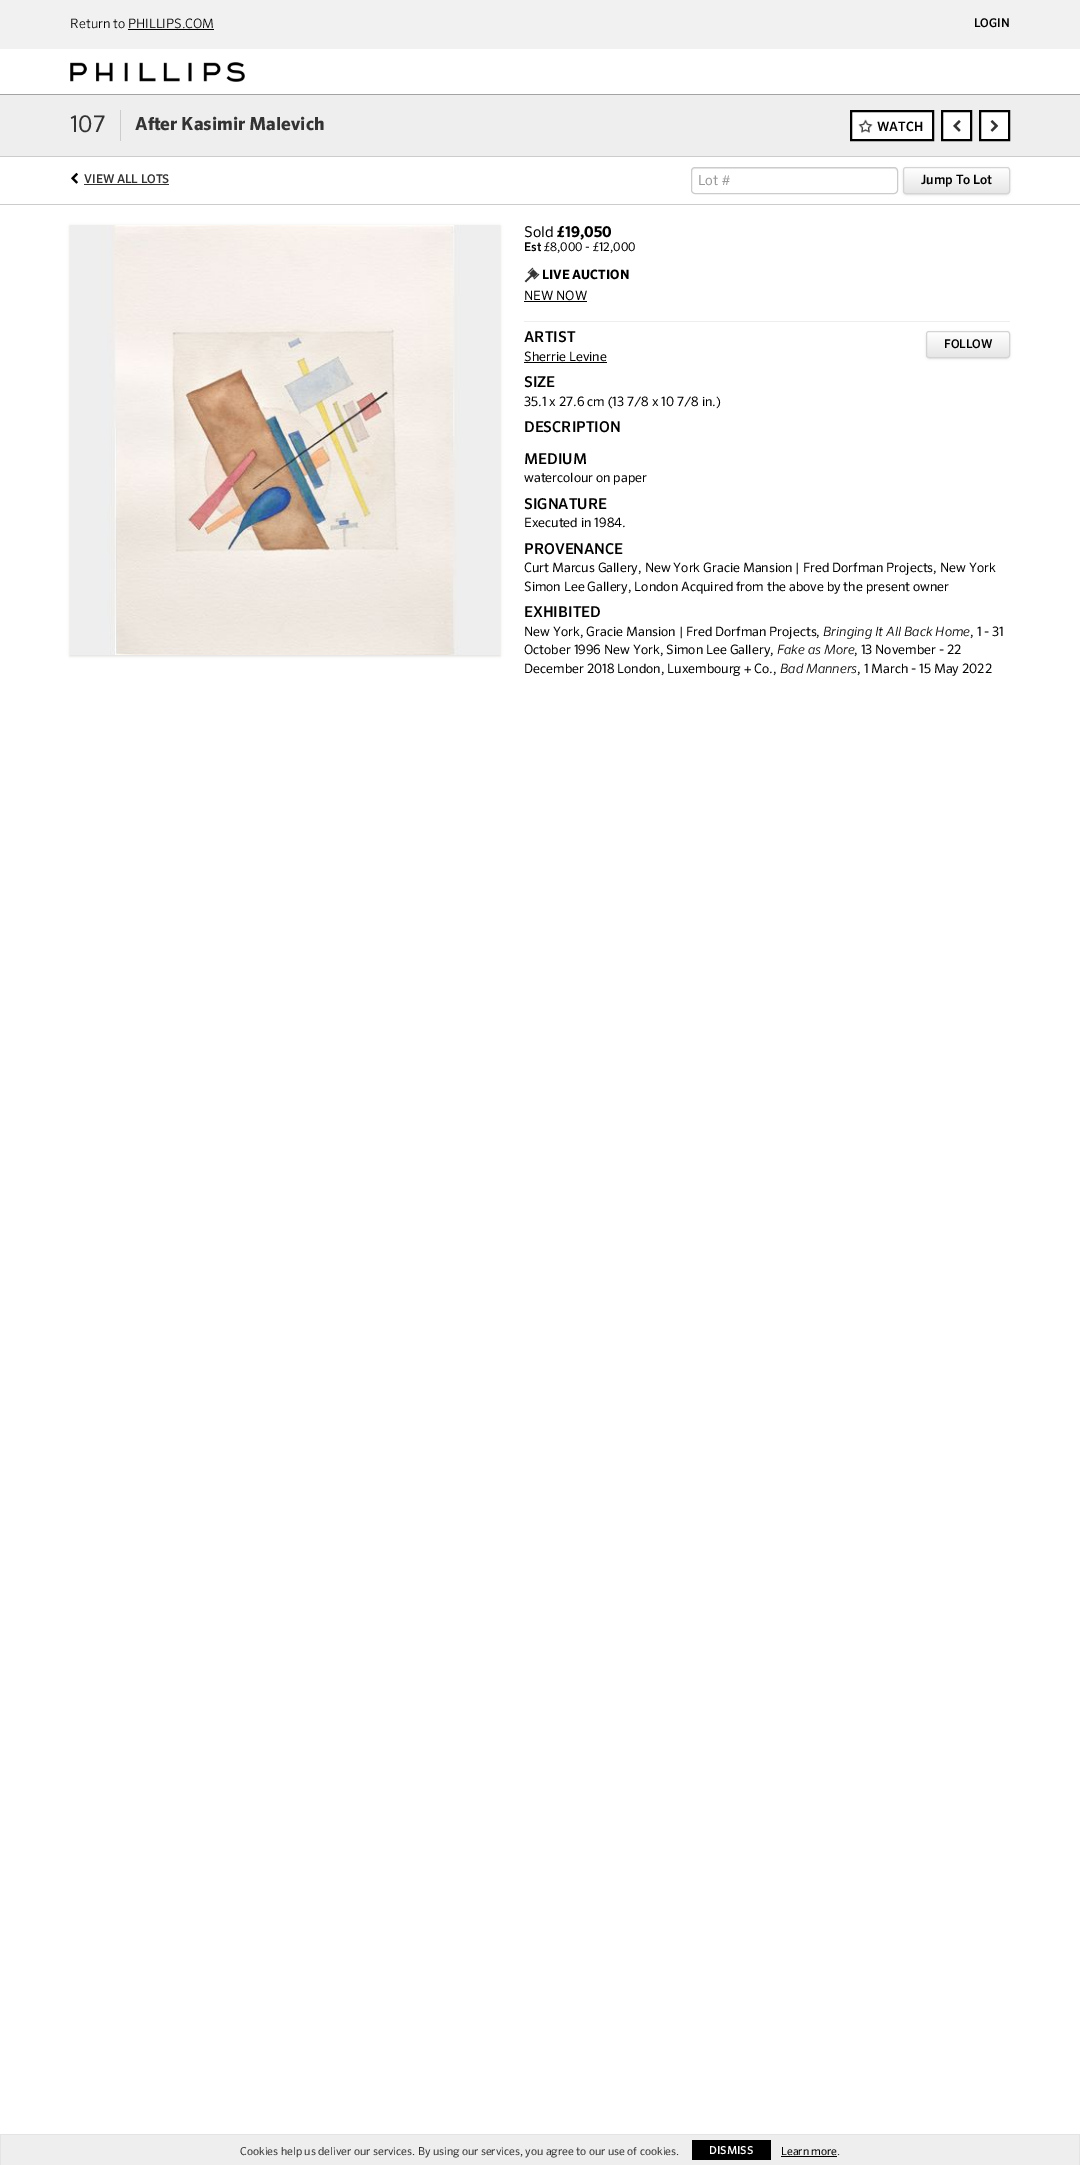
%!PS
<< /PageSize [1080 2165] /PageUsesTransparency true >> setpagedevice
/alpha { dup .setfillconstantalpha .setstrokeconstantalpha } def
/roundrect { 5 dict begin { /r /h /w /y /x } { exch def } forall
  x r add y moveto x w add y 2 copy h add r arct x w add y h add x 1 index r arct
  x y h add x y r arct x y 2 copy exch w add exch r arct closepath end } def
/shadow { 12 dict begin { /a /b /q /h /w /y /x } { exch def } forall gsave /was 0 def
  9 -2 -9 { dup b mul 4 div /e exch def 1 sub .425 mul 2.718 exch exp 1 add a .99 .min exch div /now exch def
    1 1 now sub 1 was sub div sub alpha /was now def
    w h .min e 2 mul add 0 gt { x e sub y e sub w e 2 mul add h e 2 mul add
      q e add b .6 mul add w h .min 2 div e add .min 0 .max roundrect fill } if } for grestore end } def
/picture { 5 dict begin { /h /w /y /x /name } { exch def } forall
  gsave x y translate w h scale
  w h 8 [w 0 0 h 0 0] name (r) file false 3 colorimage grestore end } def
0 .pushpdf14devicefilter
0 2165 translate 1 -1 scale
4 setmiterlimit
1 setgray
0 0 1080 2165 rectfill
0.639 setgray
0 94 1080 1 rectfill
0.945 setgray
0 0 1080 49 rectfill
/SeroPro-Light [13 0 0 -13 0 0] selectfont
0 setgray
70 28 moveto (Return to PHILLIPS.COM) show
128 29 86 1 rectfill
/SeroPro-Medium [12 0 0 -12 0 0] selectfont
974 27 moveto (LOGIN) show
(img1.rgb) 70 62 175 20 picture
0.933 setgray
0 95 1080 61 rectfill
0.8 setgray
0 156 1080 1 rectfill
/SeroPro-Regular [23 0 0 -23 0 0] selectfont
0.2 setgray
70 132 moveto (107) show
0.8 setgray
120 110 1 31 rectfill
/SeroPro-Bold [18 0 0 -18 0 0] selectfont
0.2 setgray
135 130 moveto (After Kasimir Malevich) show
1 setgray
newpath 851 111 moveto 933 111 lineto 933 140 lineto 851 140 lineto closepath gsave fill grestore
0 setgray
2 setlinewidth
stroke
(img2.rgb) 858 119 15 14 picture
/SeroPro-Medium [13 0 0 -13 0 0] selectfont
877 131 moveto (WATCH) show
1 setgray
newpath 942 111 moveto 971 111 lineto 971 140 lineto 942 140 lineto closepath gsave fill grestore
0 setgray
stroke
(img3.rgb) 953 120 8 12 picture
1 setgray
newpath 980 111 moveto 1009 111 lineto 1009 140 lineto 980 140 lineto closepath gsave fill grestore
0 setgray
stroke
(img4.rgb) 990 120 9 12 picture
(img5.rgb) 71 172 7 12 picture
/SeroPro-Medium [12 0 0 -12 0 0] selectfont
0.2 setgray
84 183 moveto (VIEW ALL LOTS) show
84 184 85 1 rectfill
0.925 setgray
newpath 695 169 moveto 894 169 lineto 896 169 897 170 897 172 curveto 897 170 896 168 894 168 curveto 695 168 lineto 693 168 692 170 692 172 curveto 692 170 693 169 695 169 curveto closepath fill
0.8 setgray
1 setlinewidth
691.5 167.5 206 26 3.5 roundrect stroke
/SeroPro-Regular [14 0 0 -14 0 0] selectfont
0.6 setgray
698 185 moveto (Lot #) show
0 setgray
904 169 105 25 2 1.5 0.2 shadow
gsave
903 167 107 27 3 roundrect clip newpath
gsave newpath 903 168 moveto 1010 168 lineto 1010 193 lineto 903 193 lineto closepath clip newpath
<< /ShadingType 2 /ColorSpace /DeviceRGB /Coords [957 168 957 193] /Extend [true true] /Function << /FunctionType 2 /Domain [0 1] /C0 [1 1 1] /C1 [0.902 0.902 0.902] /N 1 >> >> shfill grestore
grestore
0.831 setgray
903.5 167.5 106 26 2.5 roundrect stroke
/SeroPro-Medium [13 0 0 -13 0 0] selectfont
0 setgray
921 184 moveto (Jump To Lot) show
0.8 setgray
0 204 1080 1 rectfill
0.855 0.851 0.843 setrgbcolor
70 226 430 430 0 1.5 1 shadow
(img6.rgb) 70 225 430 430 picture
/SeroPro-Regular [15 0 0 -15 0 0] selectfont
0 setgray
524 237 moveto (Sold) show
/SeroPro-Bold [15 0 0 -15 0 0] selectfont
557 237 moveto (£19,050) show
/SeroPro-Medium [12 0 0 -12 0 0] selectfont
524 251 moveto (Est) show
/SeroPro-Regular [12 0 0 -12 0 0] selectfont
544 251 moveto (£8,000 - £12,000) show
(img7.rgb) 524 267 16 16 picture
/SeroPro-Bold [13 0 0 -13 0 0] selectfont
542 279 moveto (LIVE AUCTION) show
/SeroPro-Regular [13 0 0 -13 0 0] selectfont
524 300 moveto (NEW NOW) show
524 301 63 1 rectfill
0.933 setgray
524 321 486 1 rectfill
/SeroPro-Medium [15 0 0 -15 0 0] selectfont
0 setgray
524 342 moveto (ARTIST) show
927 333 82 25 2 1.5 0.2 shadow
gsave
926 331 84 27 3 roundrect clip newpath
gsave newpath 926 332 moveto 1010 332 lineto 1010 357 lineto 926 357 lineto closepath clip newpath
<< /ShadingType 2 /ColorSpace /DeviceRGB /Coords [968 332 968 357] /Extend [true true] /Function << /FunctionType 2 /Domain [0 1] /C0 [1 1 1] /C1 [0.902 0.902 0.902] /N 1 >> >> shfill grestore
grestore
0.4 alpha
1 setgray
newpath 929 333 moveto 1007 333 lineto 1008 333 1009 334 1009 335 curveto 1009 328 997 332 994 332 curveto 942 332 lineto 939 332 927 328 927 335 curveto 927 334 928 333 929 333 curveto closepath fill
1 alpha
0.831 setgray
926.5 331.5 83 26 2.5 roundrect stroke
/SeroPro-Medium [12 0 0 -12 0 0] selectfont
0 setgray
944 348 moveto (FOLLOW) show
/SeroPro-Regular [13 0 0 -13 0 0] selectfont
524 361 moveto (Sherrie Levine) show
524 362 83 1 rectfill
/SeroPro-Medium [15 0 0 -15 0 0] selectfont
524 387 moveto (SIZE) show
/SeroPro-Regular [13 0 0 -13 0 0] selectfont
524 406 moveto (35.1 x 27.6 cm \(13 7/8 x 10 7/8 in.\)) show
/SeroPro-Medium [15 0 0 -15 0 0] selectfont
524 432 moveto (DESCRIPTION) show
524 464 moveto (MEDIUM) show
/SeroPro-Regular [13 0 0 -13 0 0] selectfont
524 482 moveto (watercolour on paper) show
/SeroPro-Medium [15 0 0 -15 0 0] selectfont
524 509 moveto (SIGNATURE) show
/SeroPro-Regular [13 0 0 -13 0 0] selectfont
524 527 moveto (Executed in 1984.) show
/SeroPro-Medium [15 0 0 -15 0 0] selectfont
524 554 moveto (PROVENANCE) show
/SeroPro-Regular [13 0 0 -13 0 0] selectfont
524 572 moveto (Curt Marcus Gallery, New York Gracie Mansion | Fred Dorfman Projects, New York) show
524 591 moveto (Simon Lee Gallery, London Acquired from the above by the present owner) show
/SeroPro-Medium [15 0 0 -15 0 0] selectfont
524 617 moveto (EXHIBITED) show
/SeroPro-Regular [13 0 0 -13 0 0] selectfont
524 636 moveto (New York, Gracie Mansion | Fred Dorfman Projects,) show
/SeroPro-LightItalic [13 0 0 -13 0 0] selectfont
823 636 moveto (Bringing It All Back Home) show
/SeroPro-Regular [13 0 0 -13 0 0] selectfont
970 636 moveto (, 1 - 31) show
524 654 moveto (October 1996 New York, Simon Lee Gallery,) show
/SeroPro-LightItalic [13 0 0 -13 0 0] selectfont
777 654 moveto (Fake as More) show
/SeroPro-Regular [13 0 0 -13 0 0] selectfont
854 654 moveto (, 13 November - 22) show
524 673 moveto (December 2018 London, Luxembourg + Co.,) show
/SeroPro-LightItalic [13 0 0 -13 0 0] selectfont
780 673 moveto (Bad Manners) show
/SeroPro-Regular [13 0 0 -13 0 0] selectfont
857 673 moveto (, 1 March - 15 May 2022) show
0.933 setgray
1 2135 1078 30 rectfill
0.894 setgray
0 2134 1080 1 rectfill
1079 2134 1 31 rectfill
0 2134 1 31 rectfill
/SeroPro-Regular [11 0 0 -11 0 0] selectfont
0.2 setgray
240 2155 moveto (Cookies help us deliver our services. By using our services, you agree to our use of cookies.) show
0 setgray
692 2140 79 20 rectfill
/SeroPro-Medium [11 0 0 -11 0 0] selectfont
1 setgray
709 2154 moveto (DISMISS) show
/SeroPro-Regular [11 0 0 -11 0 0] selectfont
0 setgray
781 2155 moveto (Learn more) show
781 2156 56 1 rectfill
0.2 setgray
837 2155 moveto (.) show
.poppdf14devicefilter showpage
